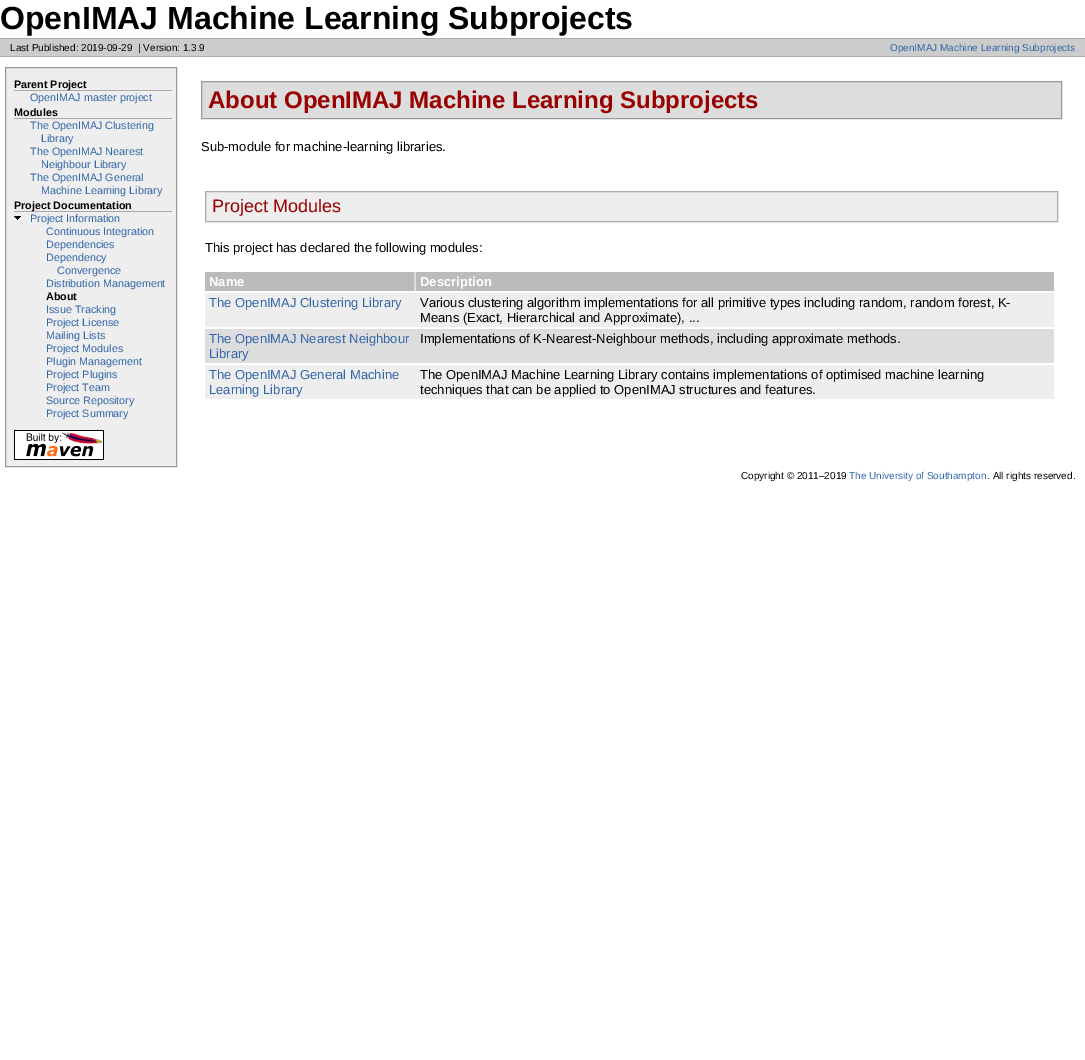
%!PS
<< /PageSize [1085 1060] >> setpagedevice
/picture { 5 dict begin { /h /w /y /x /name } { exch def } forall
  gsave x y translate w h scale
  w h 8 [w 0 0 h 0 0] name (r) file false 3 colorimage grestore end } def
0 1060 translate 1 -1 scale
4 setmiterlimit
1 setgray
0 0 1085 1060 rectfill
/LiberationSans-Bold [32 0 0 -32 0 0] selectfont
0 setgray
0 29 moveto (OpenIMAJ Machine Learning Subprojects) show
0.8 setgray
0 39 1085 17 rectfill
0.667 setgray
0 38 1085 1 rectfill
0 56 1085 1 rectfill
/LiberationSans-Regular [10 0 0 -10 0 0] selectfont
0 setgray
10 51 moveto (Last Published: 2019-09-29) show
138 51 moveto (| Version: 1.3.9) show
0.2 0.4 0.667 setrgbcolor
890 51 moveto (OpenIMAJ Machine Learning Subprojects) show
0.933 setgray
newpath 5.5 67.5 moveto 176.5 67.5 lineto 176.5 466.5 lineto 5.5 466.5 lineto closepath gsave fill grestore
0.6 setgray
stroke
0.667 setgray
14 90 158 1 rectfill
/LiberationSans-Bold [10.75 0 0 -10.75 0 0] selectfont
0 setgray
14 88 moveto (Parent Project) show
/LiberationSans-Regular [10.75 0 0 -10.75 0 0] selectfont
0.2 0.4 0.667 setrgbcolor
30 101 moveto (OpenIMAJ master project) show
0.667 setgray
14 118 158 1 rectfill
/LiberationSans-Bold [10.75 0 0 -10.75 0 0] selectfont
0 setgray
14 116 moveto (Modules) show
/LiberationSans-Regular [10.75 0 0 -10.75 0 0] selectfont
0.2 0.4 0.667 setrgbcolor
30 129 moveto (The OpenIMAJ Clustering) show
41 142 moveto (Library) show
30 155 moveto (The OpenIMAJ Nearest) show
41 168 moveto (Neighbour Library) show
30 181 moveto (The OpenIMAJ General) show
41 194 moveto (Machine Learning Library) show
0.667 setgray
14 211 158 1 rectfill
/LiberationSans-Bold [10.75 0 0 -10.75 0 0] selectfont
0 setgray
14 209 moveto (Project Documentation) show
(img1.rgb) 14 216 7 4 picture
/LiberationSans-Regular [10.75 0 0 -10.75 0 0] selectfont
0.2 0.4 0.667 setrgbcolor
30 222 moveto (Project Information) show
46 235 moveto (Continuous Integration) show
46 248 moveto (Dependencies) show
46 261 moveto (Dependency) show
57 274 moveto (Convergence) show
46 287 moveto (Distribution Management) show
/LiberationSans-Bold [10.75 0 0 -10.75 0 0] selectfont
0 setgray
46 300 moveto (About) show
/LiberationSans-Regular [10.75 0 0 -10.75 0 0] selectfont
0.2 0.4 0.667 setrgbcolor
46 313 moveto (Issue Tracking) show
46 326 moveto (Project License) show
46 339 moveto (Mailing Lists) show
46 352 moveto (Project Modules) show
46 365 moveto (Plugin Management) show
46 378 moveto (Project Plugins) show
46 391 moveto (Project Team) show
46 404 moveto (Source Repository) show
46 417 moveto (Project Summary) show
(img2.rgb) 14 430 90 30 picture
0.867 setgray
newpath 201.5 81.5 moveto 1061.5 81.5 lineto 1061.5 118.5 lineto 201.5 118.5 lineto closepath gsave fill grestore
0.6 setgray
stroke
/LiberationSans-Bold [24 0 0 -24 0 0] selectfont
0.6 0 0 setrgbcolor
208 108 moveto (About OpenIMAJ Machine Learning Subprojects) show
/LiberationSans-Regular [13 0 0 -13 0 0] selectfont
0 setgray
201 151 moveto (Sub-module for machine-learning libraries.) show
0.933 setgray
newpath 205.5 191.5 moveto 1057.5 191.5 lineto 1057.5 221.5 lineto 205.5 221.5 lineto closepath gsave fill grestore
0.667 setgray
stroke
/LiberationSans-Regular [18 0 0 -18 0 0] selectfont
0.6 0 0 setrgbcolor
212 212 moveto (Project Modules) show
/LiberationSans-Regular [13 0 0 -13 0 0] selectfont
0 setgray
205 252 moveto (This project has declared the following modules:) show
0.867 setgray
414 272 2 19 rectfill
0.733 setgray
205 272 209 19 rectfill
/LiberationSans-Bold [13 0 0 -13 0 0] selectfont
1 setgray
209 286 moveto (Name) show
0.733 setgray
416 272 638 19 rectfill
1 setgray
420 286 moveto (Description) show
0.933 setgray
205 293 849 34 rectfill
/LiberationSans-Regular [13 0 0 -13 0 0] selectfont
0.2 0.4 0.667 setrgbcolor
209 307 moveto (The OpenIMAJ Clustering Library) show
0 setgray
420 307 moveto (Various clustering algorithm implementations for all primitive types including random, random forest, K-) show
420 322 moveto (Means \(Exact, Hierarchical and Approximate\), ...) show
0.867 setgray
205 329 849 34 rectfill
0.2 0.4 0.667 setrgbcolor
209 343 moveto (The OpenIMAJ Nearest Neighbour) show
209 358 moveto (Library) show
0 setgray
420 343 moveto (Implementations of K-Nearest-Neighbour methods, including approximate methods.) show
0.933 setgray
205 365 849 34 rectfill
0.2 0.4 0.667 setrgbcolor
209 379 moveto (The OpenIMAJ General Machine) show
209 394 moveto (Learning Library) show
0 setgray
420 379 moveto (The OpenIMAJ Machine Learning Library contains implementations of optimised machine learning) show
420 394 moveto (techniques that can be applied to OpenIMAJ structures and features.) show
/LiberationSans-Regular [10 0 0 -10 0 0] selectfont
741 479 moveto (Copyright © 2011–2019) show
0.2 0.4 0.667 setrgbcolor
849 479 moveto (The University of Southampton) show
0 setgray
987 479 moveto (. All rights reserved.) show
showpage
